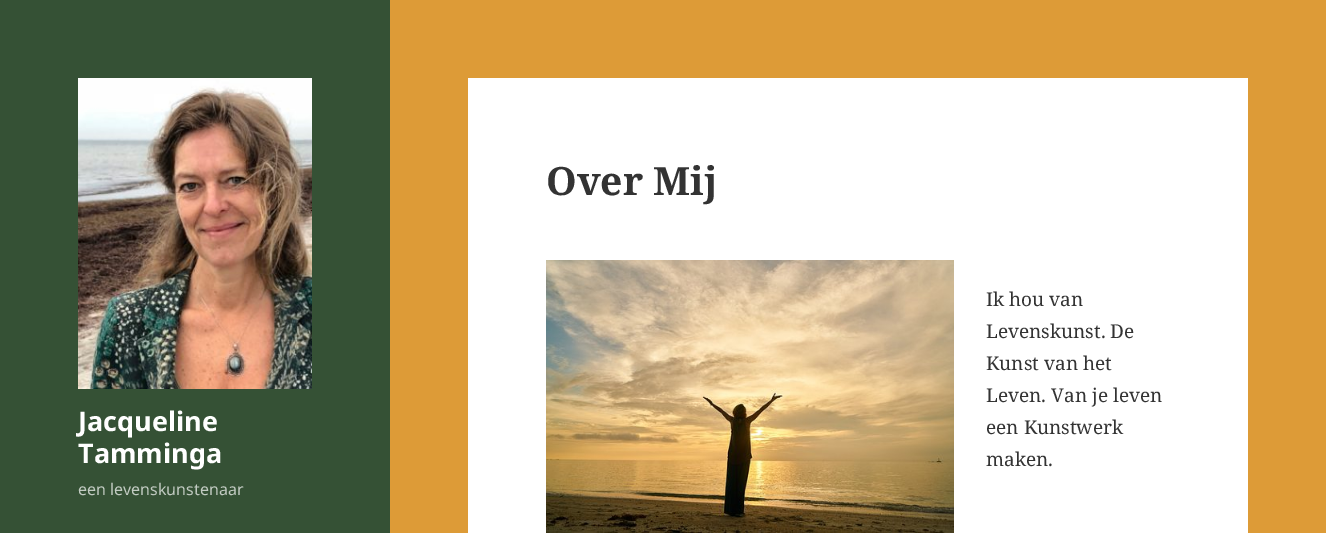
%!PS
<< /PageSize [1326 533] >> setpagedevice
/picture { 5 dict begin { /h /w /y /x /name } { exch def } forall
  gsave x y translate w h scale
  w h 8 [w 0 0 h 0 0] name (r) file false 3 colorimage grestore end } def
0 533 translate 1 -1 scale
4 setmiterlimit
0.867 0.608 0.216 setrgbcolor
0 0 1326 533 rectfill
0.208 0.318 0.208 setrgbcolor
0 0 390 533 rectfill
(img1.rgb) 78 78 234 311 picture
/NotoSans-Bold [27 0 0 -27 0 0] selectfont
1 setgray
78 431 moveto (Jacqueline) show
78 463 moveto (Tamminga) show
/NotoSans-Regular [16 0 0 -16 0 0] selectfont
0.761 0.796 0.761 setrgbcolor
78 495 moveto (een levenskunstenaar) show
1 setgray
468 78 780 455 rectfill
/NotoSerif-Bold [39 0 0 -39 0 0] selectfont
0.2 setgray
546 195 moveto (Over Mij) show
(img2.rgb) 546 260 408 273 picture
/NotoSerif-Regular [19 0 0 -19 0 0] selectfont
986 306 moveto (Ik hou van) show
986 338 moveto (Levenskunst. De) show
986 370 moveto (Kunst van het) show
986 402 moveto (Leven. Van je leven) show
986 434 moveto (een Kunstwerk) show
986 466 moveto (maken.) show
showpage
